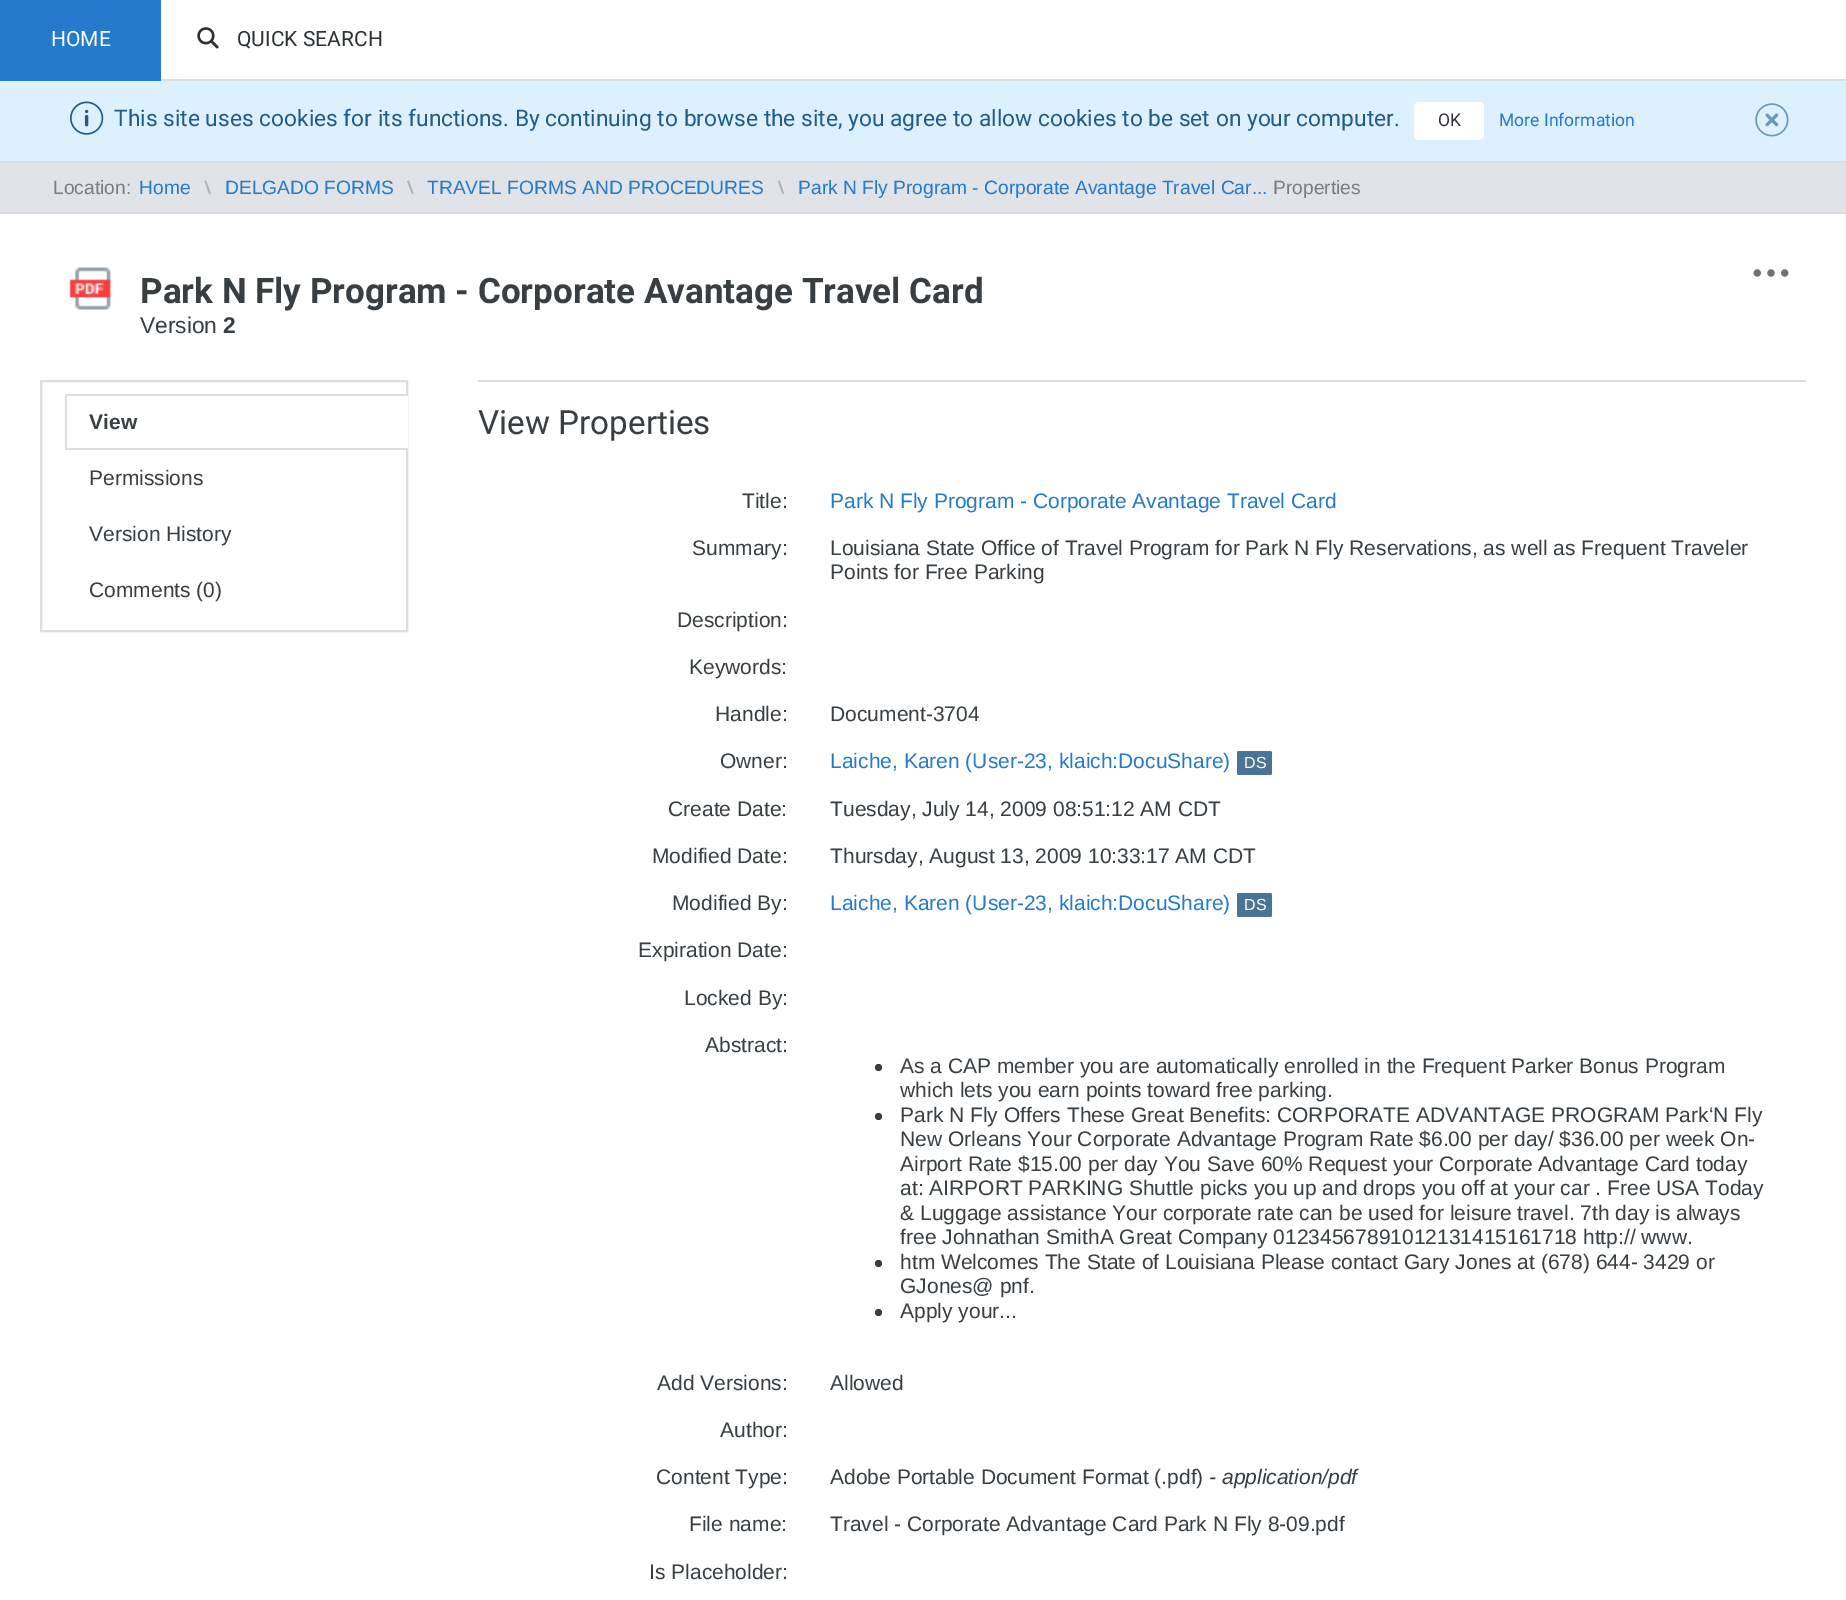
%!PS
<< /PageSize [1846 1600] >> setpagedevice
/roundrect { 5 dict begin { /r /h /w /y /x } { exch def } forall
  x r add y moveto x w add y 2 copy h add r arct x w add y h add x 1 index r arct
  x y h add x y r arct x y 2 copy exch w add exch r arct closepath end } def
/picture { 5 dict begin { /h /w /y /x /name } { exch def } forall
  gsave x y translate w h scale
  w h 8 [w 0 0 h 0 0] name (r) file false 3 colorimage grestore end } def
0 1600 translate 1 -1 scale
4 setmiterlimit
1 setgray
0 0 1846 1600 rectfill
0.863 0.871 0.878 setrgbcolor
161 79 1685 2 rectfill
0.141 0.478 0.796 setrgbcolor
0 0 161 81 rectfill
/Roboto-Regular [21 0 0 -21 0 0] selectfont
1 setgray
51 46 moveto (HOME) show
(img1.rgb) 197 27 22 22 picture
0.18 0.196 0.212 setrgbcolor
237 46 moveto (QUICK SEARCH) show
0.867 0.941 0.996 setrgbcolor
0 81 1846 80 rectfill
0.863 0.871 0.878 setrgbcolor
0 161 1846 2 rectfill
(img2.rgb) 70 101 34 34 picture
/Roboto-Regular [22.75 0 0 -22.75 0 0] selectfont
0.129 0.361 0.537 setrgbcolor
114 126 moveto (This site uses cookies for its functions. By continuing to browse the site, you agree to allow cookies to be set on your computer.) show
1 setgray
1414 102 70 38 5 roundrect fill
/Roboto-Regular [17.5 0 0 -17.5 0 0] selectfont
0.18 0.196 0.212 setrgbcolor
1438 126 moveto (OK) show
0.141 0.478 0.796 setrgbcolor
1499 126 moveto (More Information) show
(img3.rgb) 1755 103 34 34 picture
0.878 0.89 0.906 setrgbcolor
0 163 1846 49 rectfill
0.863 0.871 0.878 setrgbcolor
0 212 1846 2 rectfill
/LiberationSans-Regular [19.25 0 0 -19.25 0 0] selectfont
0.475 0.486 0.514 setrgbcolor
53 194 moveto (Location:) show
0.141 0.478 0.796 setrgbcolor
139 194 moveto (Home) show
0.694 0.702 0.718 setrgbcolor
newpath 204.5 181 moveto 206 180.5 lineto 211 193.5 lineto 209 194 lineto closepath fill
0.141 0.478 0.796 setrgbcolor
225 194 moveto (DELGADO FORMS) show
0.694 0.702 0.718 setrgbcolor
newpath 407 181 moveto 409 180.5 lineto 413.5 193.5 lineto 412 194 lineto closepath fill
0.141 0.478 0.796 setrgbcolor
427 194 moveto (TRAVEL FORMS AND PROCEDURES) show
0.694 0.702 0.718 setrgbcolor
newpath 778 181 moveto 779.5 180.5 lineto 784 193.5 lineto 782.5 194 lineto closepath fill
0.141 0.478 0.796 setrgbcolor
798 194 moveto (Park N Fly Program - Corporate Avantage Travel Car...) show
0.475 0.486 0.514 setrgbcolor
1273 194 moveto (Properties) show
(img4.rgb) 69 267 42 43 picture
(img5.rgb) 1753 269 36 8 picture
/Roboto-Bold [35 0 0 -35 0 0] selectfont
0.22 0.243 0.259 setrgbcolor
140 303 moveto (Park N Fly Program - Corporate Avantage Travel Card) show
/LiberationSans-Regular [22.75 0 0 -22.75 0 0] selectfont
140 333 moveto (Version) show
/LiberationSans-Bold [22.75 0 0 -22.75 0 0] selectfont
223 333 moveto (2) show
0.863 0.871 0.878 setrgbcolor
2 setlinewidth
41 381 366 250 rectstroke
1 setgray
406 396 2 52 rectfill
0.863 0.871 0.878 setrgbcolor
65 394 343 2 rectfill
65 448 343 2 rectfill
65 394 2 56 rectfill
/LiberationSans-Bold [21 0 0 -21 0 0] selectfont
0.22 0.243 0.259 setrgbcolor
89 429 moveto (View) show
/LiberationSans-Regular [21 0 0 -21 0 0] selectfont
89 485 moveto (Permissions) show
89 541 moveto (Version History) show
89 597 moveto (Comments \(0\)) show
0.863 0.871 0.878 setrgbcolor
478 380 1328 2 rectfill
/Roboto-Regular [33.25 0 0 -33.25 0 0] selectfont
0.22 0.243 0.259 setrgbcolor
478 434 moveto (View Properties) show
/LiberationSans-Regular [21 0 0 -21 0 0] selectfont
742 508 moveto (Title:) show
0.141 0.478 0.796 setrgbcolor
830 508 moveto (Park N Fly Program - Corporate Avantage Travel Card) show
0.22 0.243 0.259 setrgbcolor
692 555 moveto (Summary:) show
830 555 moveto (Louisiana State Office of Travel Program for Park N Fly Reservations, as well as Frequent Traveler) show
830 579 moveto (Points for Free Parking) show
677 627 moveto (Description:) show
689 674 moveto (Keywords:) show
715 721 moveto (Handle:) show
830 721 moveto (Document-3704) show
720 768 moveto (Owner:) show
0.141 0.478 0.796 setrgbcolor
830 768 moveto (Laiche, Karen \(User-23, klaich:DocuShare\)) show
0.294 0.451 0.588 setrgbcolor
1237 751 35 24 2 roundrect fill
/LiberationSans-Regular [16 0 0 -16 0 0] selectfont
1 setgray
1244 768 moveto (DS) show
/LiberationSans-Regular [21 0 0 -21 0 0] selectfont
0.22 0.243 0.259 setrgbcolor
668 816 moveto (Create Date:) show
830 816 moveto (Tuesday, July 14, 2009 08:51:12 AM CDT) show
652 863 moveto (Modified Date:) show
830 863 moveto (Thursday, August 13, 2009 10:33:17 AM CDT) show
672 910 moveto (Modified By:) show
0.141 0.478 0.796 setrgbcolor
830 910 moveto (Laiche, Karen \(User-23, klaich:DocuShare\)) show
0.294 0.451 0.588 setrgbcolor
1237 893 35 24 2 roundrect fill
/LiberationSans-Regular [16 0 0 -16 0 0] selectfont
1 setgray
1244 910 moveto (DS) show
/LiberationSans-Regular [21 0 0 -21 0 0] selectfont
0.22 0.243 0.259 setrgbcolor
638 957 moveto (Expiration Date:) show
684 1005 moveto (Locked By:) show
705 1052 moveto (Abstract:) show
newpath 878.5 1067.5 3.5 0 360 arc closepath fill
900 1073 moveto (As a CAP member you are automatically enrolled in the Frequent Parker Bonus Program) show
900 1097 moveto (which lets you earn points toward free parking.) show
newpath 878.5 1116.5 3.5 0 360 arc closepath fill
900 1122 moveto (Park N Fly Offers These Great Benefits: CORPORATE ADVANTAGE PROGRAM Park‘N Fly) show
900 1146 moveto (New Orleans Your Corporate Advantage Program Rate $6.00 per day/ $36.00 per week On-) show
900 1171 moveto (Airport Rate $15.00 per day You Save 60% Request your Corporate Advantage Card today) show
900 1195 moveto (at: AIRPORT PARKING Shuttle picks you up and drops you off at your car . Free USA Today) show
900 1220 moveto (& Luggage assistance Your corporate rate can be used for leisure travel. 7th day is always) show
900 1244 moveto (free Johnathan SmithA Great Company 01234567891012131415161718 http:// www.) show
newpath 878.5 1263.5 3.5 0 360 arc closepath fill
900 1269 moveto (htm Welcomes The State of Louisiana Please contact Gary Jones at \(678\) 644- 3429 or) show
900 1293 moveto (GJones@ pnf.) show
newpath 878.5 1312.5 3.5 0 360 arc closepath fill
900 1318 moveto (Apply your...) show
657 1390 moveto (Add Versions:) show
830 1390 moveto (Allowed) show
720 1437 moveto (Author:) show
656 1484 moveto (Content Type:) show
830 1484 moveto (Adobe Portable Document Format \(.pdf\)) show
/LiberationSans-Italic [21 0 0 -21 0 0] selectfont
1209 1484 moveto (- application/pdf) show
/LiberationSans-Regular [21 0 0 -21 0 0] selectfont
689 1531 moveto (File name:) show
830 1531 moveto (Travel - Corporate Advantage Card Park N Fly 8-09.pdf) show
649 1579 moveto (Is Placeholder:) show
showpage
